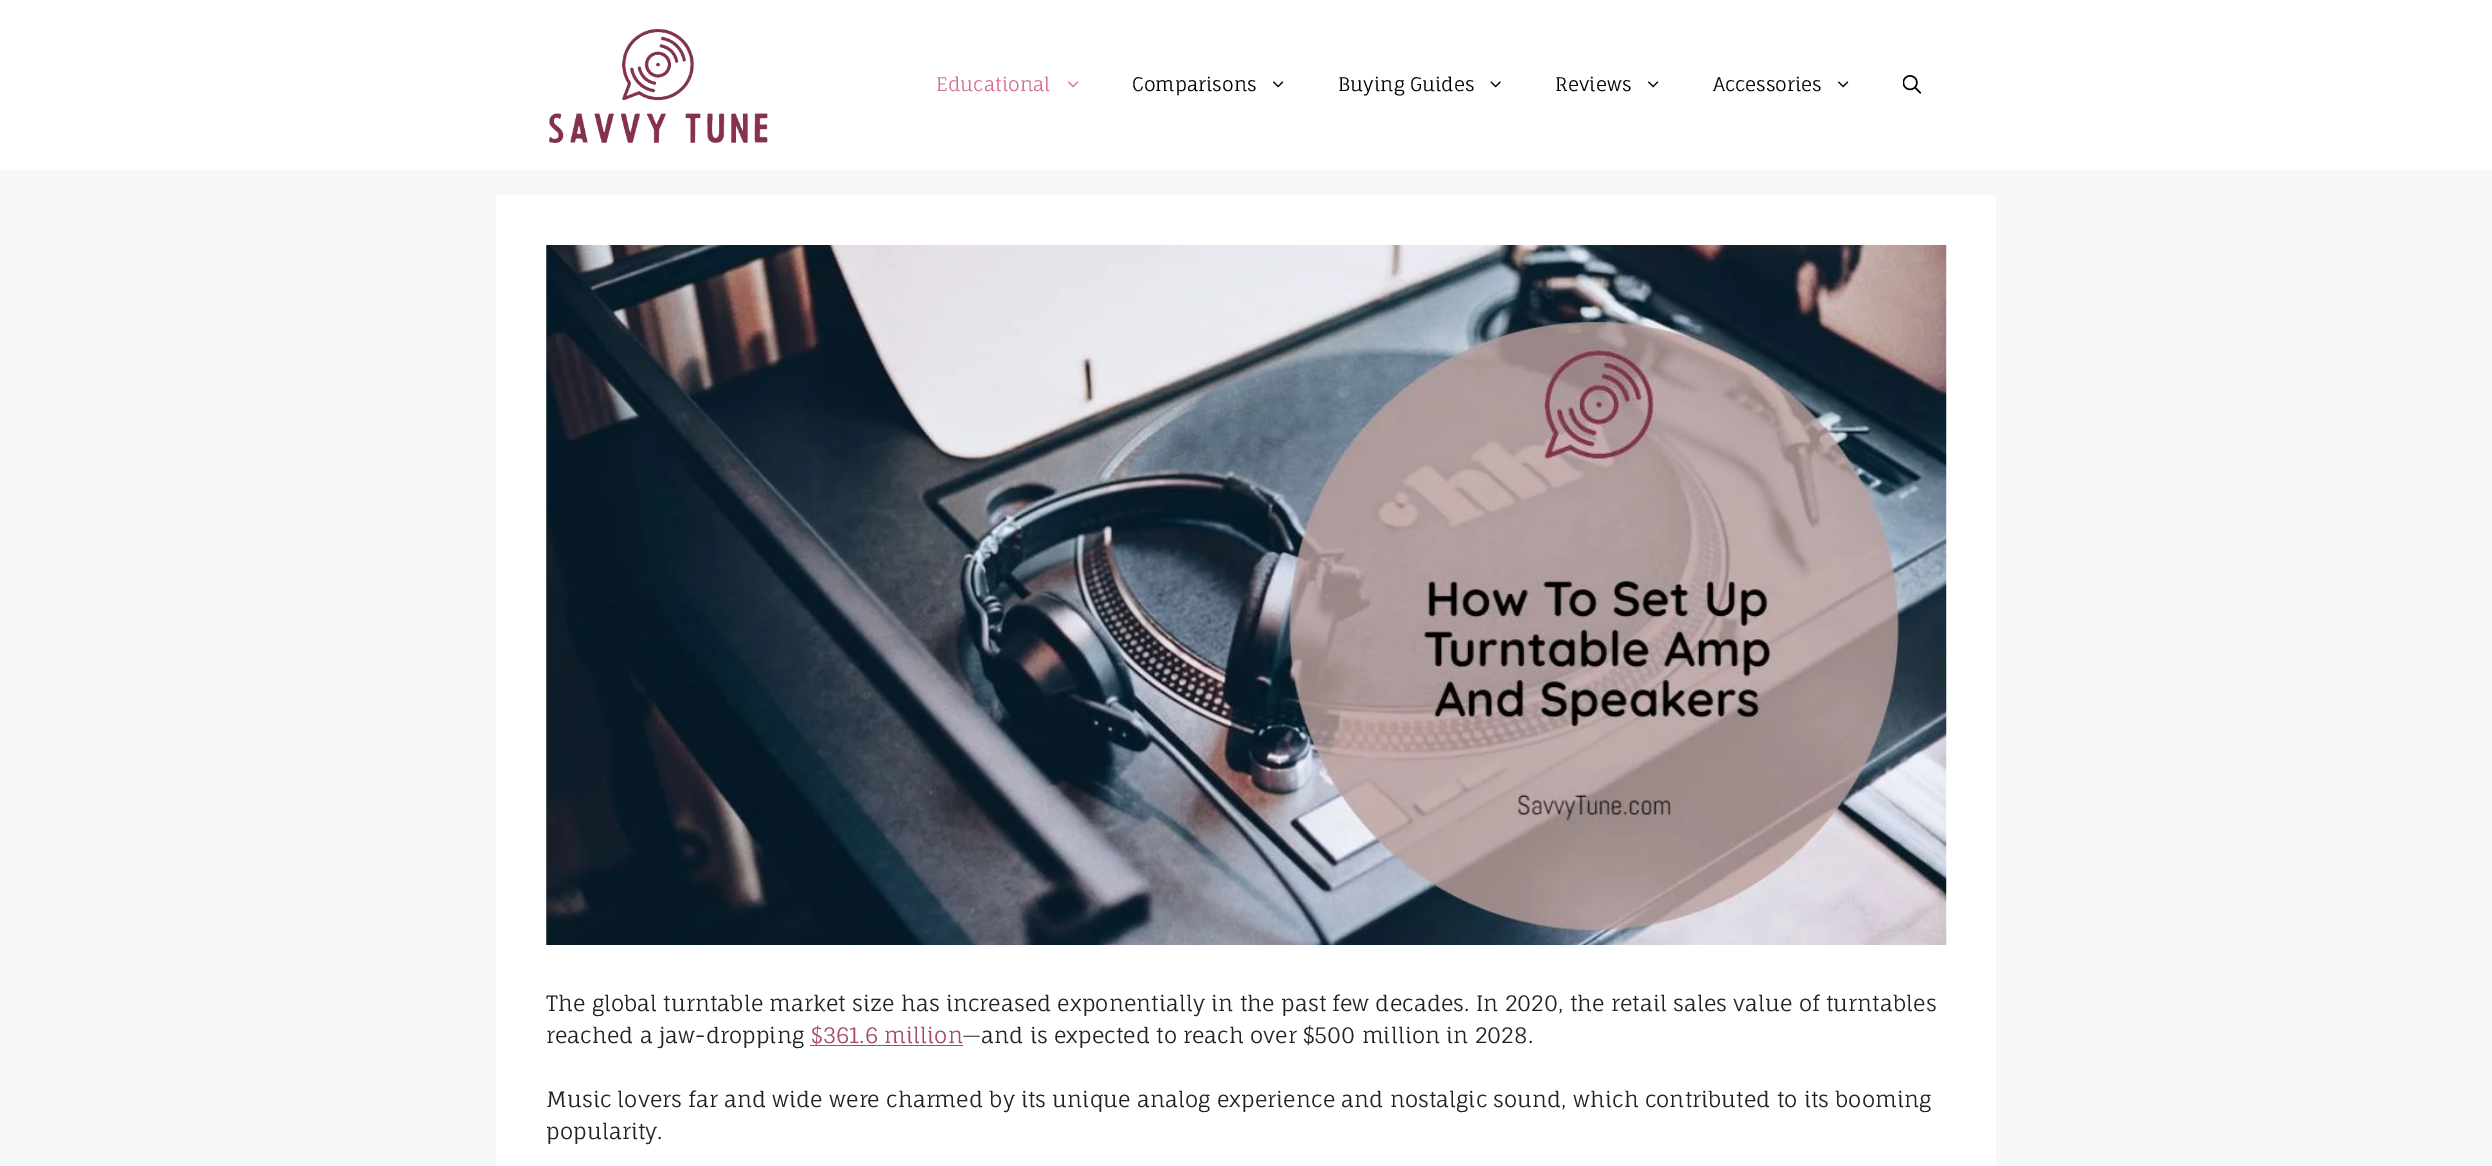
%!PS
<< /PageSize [2492 1166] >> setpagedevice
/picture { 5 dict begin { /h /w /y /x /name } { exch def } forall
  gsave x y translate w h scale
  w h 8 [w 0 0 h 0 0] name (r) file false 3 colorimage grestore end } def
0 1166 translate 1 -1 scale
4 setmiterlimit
0.969 0.973 0.976 setrgbcolor
0 0 2492 1166 rectfill
1 setgray
0 0 2492 170 rectfill
(img1.rgb) 549 29 219 114 picture
/FaunaOne-Regular [18.75 0 0 -18.75 0 0] selectfont
0.835 0.431 0.573 setrgbcolor
936 91 moveto (Educational) show
(img2.rgb) 1068 81 11 7 picture
0 setgray
1132 91 moveto (Comparisons) show
(img3.rgb) 1273 81 11 7 picture
1338 91 moveto (Buying Guides) show
(img4.rgb) 1490 81 11 7 picture
1555 91 moveto (Reviews) show
(img3.rgb) 1648 81 11 7 picture
1713 91 moveto (Accessories) show
(img3.rgb) 1838 81 11 7 picture
(img5.rgb) 1903 75 18 19 picture
1 setgray
496 195 1500 971 rectfill
(img6.rgb) 546 245 1401 700 picture
/FaunaOne-Regular [21.25 0 0 -21.25 0 0] selectfont
0.133 setgray
546 1011 moveto (The global turntable market size has increased exponentially in the past few decades. In 2020, the retail sales value of turntables) show
546 1043 moveto (reached a jaw-dropping) show
0.643 0.294 0.408 setrgbcolor
810 1045 153 1 rectfill
811 1043 moveto ($361.6 million) show
0.133 setgray
962 1043 moveto (—and is expected to reach over $500 million in 2028.) show
546 1107 moveto (Music lovers far and wide were charmed by its unique analog experience and nostalgic sound, which contributed to its booming) show
546 1139 moveto (popularity.) show
showpage
